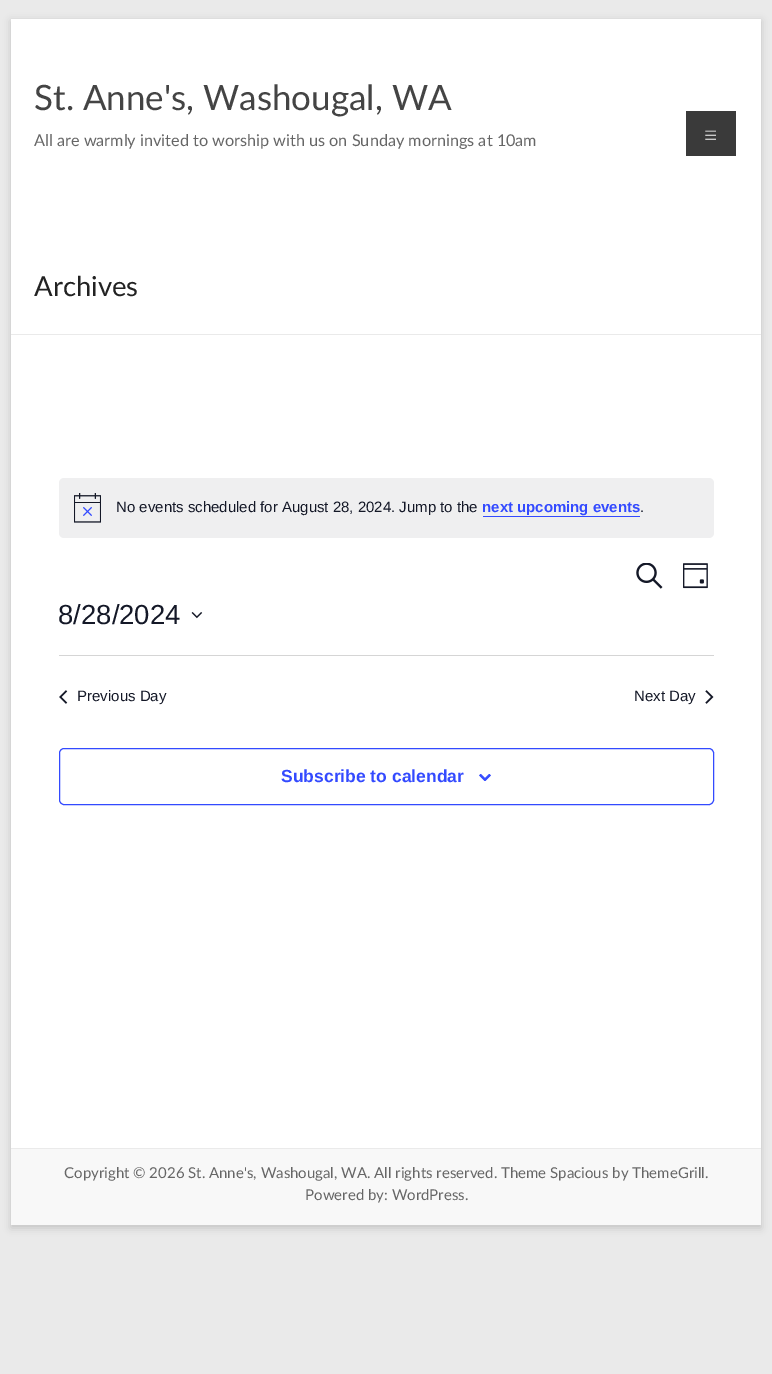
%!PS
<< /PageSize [772 1374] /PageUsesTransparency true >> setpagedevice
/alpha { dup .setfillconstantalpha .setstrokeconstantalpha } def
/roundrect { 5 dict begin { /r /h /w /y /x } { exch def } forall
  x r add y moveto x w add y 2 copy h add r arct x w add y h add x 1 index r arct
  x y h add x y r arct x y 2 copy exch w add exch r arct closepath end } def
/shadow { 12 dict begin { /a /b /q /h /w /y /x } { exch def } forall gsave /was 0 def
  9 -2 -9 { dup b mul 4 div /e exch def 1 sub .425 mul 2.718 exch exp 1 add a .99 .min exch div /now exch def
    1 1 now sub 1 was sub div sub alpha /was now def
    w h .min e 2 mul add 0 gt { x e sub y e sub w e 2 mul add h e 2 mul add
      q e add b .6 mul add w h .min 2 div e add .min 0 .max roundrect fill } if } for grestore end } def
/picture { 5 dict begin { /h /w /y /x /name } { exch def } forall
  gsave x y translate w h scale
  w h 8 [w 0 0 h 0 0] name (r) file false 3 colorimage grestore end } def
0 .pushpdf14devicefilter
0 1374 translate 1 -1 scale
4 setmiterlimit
0.918 setgray
0 0 772 1374 rectfill
0.392 setgray
11 21 750 1207 0 4 0.3 shadow
1 setgray
11 19 750 1129 rectfill
/Lato-Regular [35 0 0 -35 0 0] selectfont
0.267 setgray
34 110 moveto (St. Anne's, Washougal, WA) show
/Lato-Regular [16.25 0 0 -16.25 0 0] selectfont
0.4 setgray
34 146 moveto (All are warmly invited to worship with us on Sunday mornings at 10am) show
0.227 setgray
686 111 50 45 rectfill
/Lato-Light [26 0 0 -26 0 0] selectfont
1 setgray
703 144 moveto (≡) show
0.918 setgray
11 334 750 1 rectfill
/Lato-Regular [27.5 0 0 -27.5 0 0] selectfont
0.133 setgray
34 296 moveto (Archives) show
0.937 0.937 0.941 setrgbcolor
59 478 655 60 5 roundrect fill
(img1.rgb) 74 493 27 30 picture
/LiberationSans-Regular [15 0 0 -15 0 0] selectfont
0.078 0.094 0.153 setrgbcolor
116 512 moveto (No events scheduled for August 28, 2024. Jump to the) show
/LiberationSans-Bold [15 0 0 -15 0 0] selectfont
0.2 0.29 1 setrgbcolor
482 512 moveto (next upcoming events) show
483 516 157 1 rectfill
/LiberationSans-Regular [15 0 0 -15 0 0] selectfont
0.078 0.094 0.153 setrgbcolor
640 512 moveto (.) show
(img2.rgb) 636 563 27 26 picture
(img3.rgb) 683 563 25 26 picture
/LiberationSans-Regular [27.5 0 0 -27.5 0 0] selectfont
58 624 moveto (8/28/2024) show
(img4.rgb) 191 612 12 7 picture
0.835 setgray
59 655 655 1 rectfill
(img5.rgb) 59 690 9 14 picture
/LiberationSans-Regular [15 0 0 -15 0 0] selectfont
0.078 0.094 0.153 setrgbcolor
77 701 moveto (Previous Day) show
634 701 moveto (Next Day) show
(img6.rgb) 705 690 9 14 picture
0.2 0.29 1 setrgbcolor
59.5 748.5 654 56 4.5 roundrect stroke
/LiberationSans-Bold [17.5 0 0 -17.5 0 0] selectfont
281 782 moveto (Subscribe to calendar) show
(img7.rgb) 479 774 12 7 picture
0.973 setgray
11 1149 750 76 rectfill
0.918 setgray
11 1148 750 1 rectfill
/Lato-Regular [15 0 0 -15 0 0] selectfont
0.4 setgray
64 1178 moveto (Copyright © 2026 St. Anne's, Washougal, WA. All rights reserved. Theme Spacious by ThemeGrill.) show
305 1200 moveto (Powered by: WordPress.) show
.poppdf14devicefilter showpage
